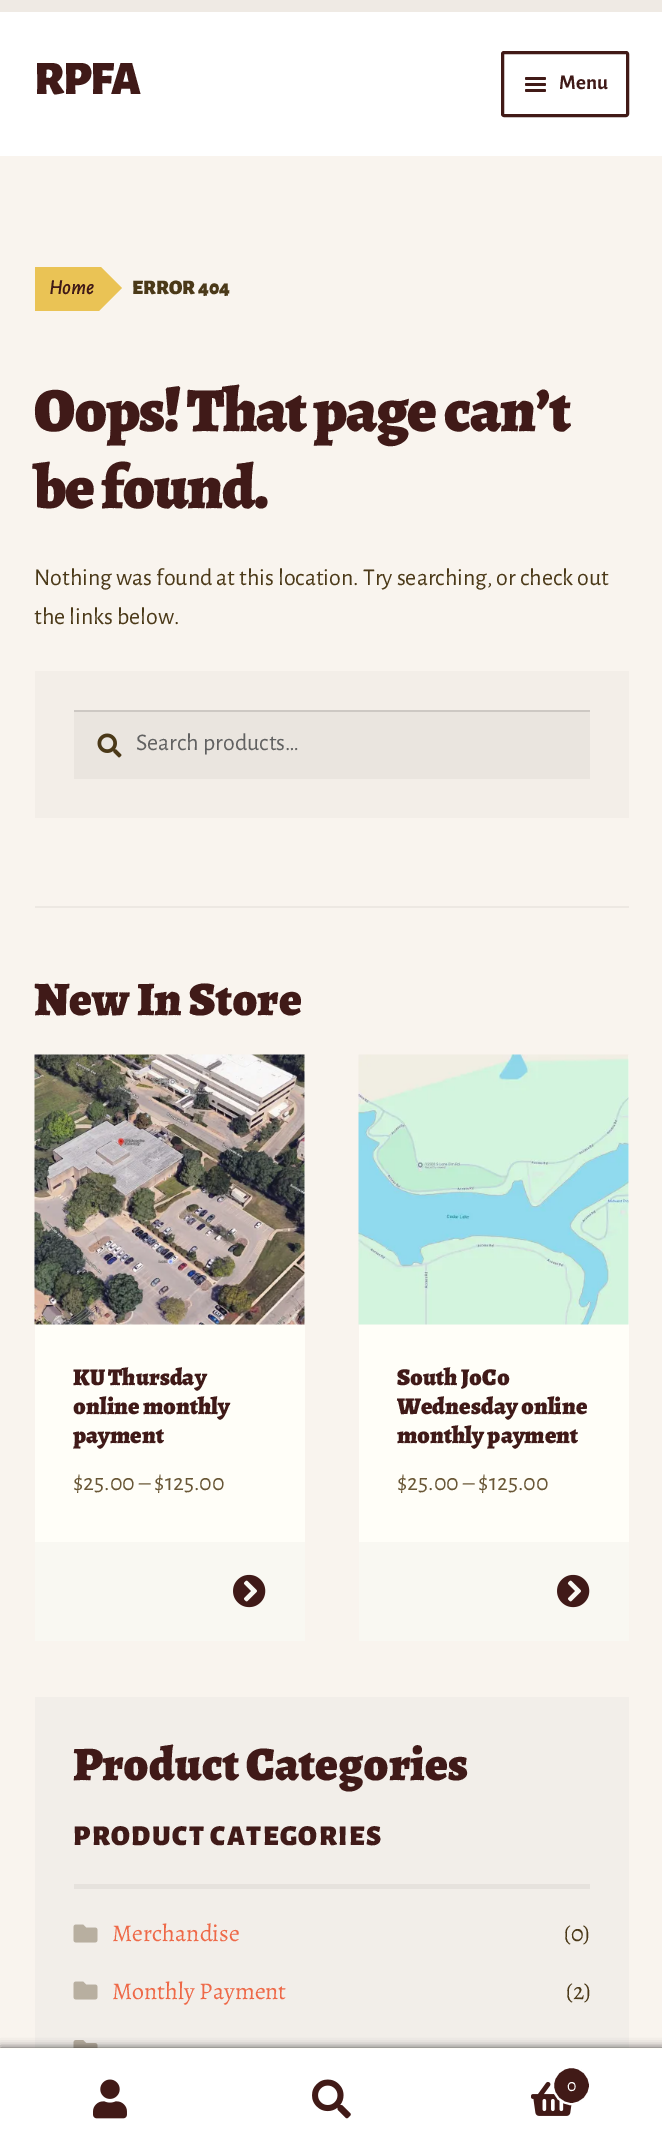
%!PS
<< /PageSize [662 2150] /PageUsesTransparency true >> setpagedevice
/alpha { dup .setfillconstantalpha .setstrokeconstantalpha } def
/roundrect { 5 dict begin { /r /h /w /y /x } { exch def } forall
  x r add y moveto x w add y 2 copy h add r arct x w add y h add x 1 index r arct
  x y h add x y r arct x y 2 copy exch w add exch r arct closepath end } def
/shadow { 12 dict begin { /a /b /q /h /w /y /x } { exch def } forall gsave /was 0 def
  9 -2 -9 { dup b mul 4 div /e exch def 1 sub .425 mul 2.718 exch exp 1 add a .99 .min exch div /now exch def
    1 1 now sub 1 was sub div sub alpha /was now def
    w h .min e 2 mul add 0 gt { x e sub y e sub w e 2 mul add h e 2 mul add
      q e add b .6 mul add w h .min 2 div e add .min 0 .max roundrect fill } if } for grestore end } def
/picture { 5 dict begin { /h /w /y /x /name } { exch def } forall
  gsave x y translate w h scale
  w h 8 [w 0 0 h 0 0] name (r) file false 3 colorimage grestore end } def
0 .pushpdf14devicefilter
0 2150 translate 1 -1 scale
4 setmiterlimit
0.976 0.957 0.933 setrgbcolor
0 0 662 2150 rectfill
1 setgray
0 12 662 144 rectfill
0.937 0.918 0.894 setrgbcolor
0 0 662 12 rectfill
/AlegreyaSans-Black [48 0 0 -48 0 0] selectfont
0.251 0.102 0.094 setrgbcolor
34 94 moveto -1.5 0 (RPFA) ashow
0.255 0.102 0.09 setrgbcolor
3 setlinewidth
502.5 52.5 125 63 1.5 roundrect stroke
525 77 21 3 1.5 roundrect fill
525 83 21 3 1.5 roundrect fill
/AlegreyaSans-Bold [21 0 0 -21 0 0] selectfont
0.251 0.102 0.094 setrgbcolor
559 89 moveto (Menu) show
0.255 0.102 0.09 setrgbcolor
525 89 21 3 1.5 roundrect fill
0.918 0.765 0.333 setrgbcolor
35 267 63 44 rectfill
/AlegreyaSans-BoldItalic [20.5 0 0 -20.5 0 0] selectfont
0.251 0.102 0.094 setrgbcolor
49 294 moveto (Home) show
gsave
35 267 594 44 rectclip
0.918 0.765 0.333 setrgbcolor
newpath 98 312 moveto 98 264 lineto 122 288 lineto closepath fill
grestore
/AlegreyaSans-Black [20.5 0 0 -20.5 0 0] selectfont
0.294 0.224 0.094 setrgbcolor
132 294 moveto (ERROR 404) show
/Alegreya-Black [62.75 0 0 -62.75 0 0] selectfont
0.251 0.102 0.094 setrgbcolor
34 431 moveto -1.5 0 (Oops! That page can’t) ashow
34 508 moveto -1.5 0 (be found.) ashow
/AlegreyaSans-Regular [24 0 0 -24 0 0] selectfont
0.294 0.224 0.094 setrgbcolor
34 585 moveto (Nothing was found at this location. Try searching, or check out) show
34 624 moveto (the links below.) show
0.953 0.933 0.91 setrgbcolor
35 671 594 147 rectfill
0.918 0.898 0.875 setrgbcolor
74 712 516 67 rectfill
(img1.rgb) 97 733 25 25 picture
0.804 0.784 0.765 setrgbcolor
74 710 516 2 rectfill
0.38 setgray
136 750 moveto (Search products…) show
0.929 0.91 0.886 setrgbcolor
35 906 594 2 rectfill
/Alegreya-Black [48 0 0 -48 0 0] selectfont
0.251 0.102 0.094 setrgbcolor
34 1015 moveto (New In Store) show
1 0.996 0.973 setrgbcolor
35 1055 270 487 rectfill
(img2.rgb) 34 1054 271 271 picture
/Alegreya-Black [24 0 0 -24 0 0] selectfont
0.251 0.102 0.094 setrgbcolor
73 1385 moveto (KU Thursday) show
73 1414 moveto (online monthly) show
73 1443 moveto (payment) show
/AlegreyaSans-Regular [24 0 0 -24 0 0] selectfont
0.412 0.341 0.212 setrgbcolor
73 1490 moveto ($25.00 – $125.00) show
0.976 0.973 0.949 setrgbcolor
35 1542 270 99 rectfill
(img3.rgb) 233 1574 33 34 picture
1 0.996 0.973 setrgbcolor
359 1055 270 487 rectfill
(img4.rgb) 358 1054 271 271 picture
/Alegreya-Black [24 0 0 -24 0 0] selectfont
0.251 0.102 0.094 setrgbcolor
397 1385 moveto (South JoCo) show
397 1414 moveto (Wednesday online) show
397 1443 moveto (monthly payment) show
/AlegreyaSans-Regular [24 0 0 -24 0 0] selectfont
0.412 0.341 0.212 setrgbcolor
397 1490 moveto ($25.00 – $125.00) show
0.976 0.973 0.949 setrgbcolor
359 1542 270 99 rectfill
(img3.rgb) 557 1574 33 34 picture
0.949 0.933 0.914 setrgbcolor
35 1697 594 351 rectfill
/Alegreya-Black [48 0 0 -48 0 0] selectfont
0.251 0.102 0.094 setrgbcolor
73 1780 moveto (Product Categories) show
0.902 0.886 0.867 setrgbcolor
74 1884 516 5 rectfill
/AlegreyaSans-Black [28.75 0 0 -28.75 0 0] selectfont
0.251 0.102 0.094 setrgbcolor
73 1845 moveto 1.5 0 (PRODUCT CATEGORIES) ashow
(img5.rgb) 73 1924 25 19 picture
/Alegreya-Regular [24 0 0 -24 0 0] selectfont
0.933 0.412 0.282 setrgbcolor
112 1941 moveto (Merchandise) show
0.294 0.224 0.094 setrgbcolor
564 1941 moveto (\(0\)) show
(img5.rgb) 73 1981 25 19 picture
0.933 0.412 0.282 setrgbcolor
112 1999 moveto (Monthly Payment) show
0.294 0.224 0.094 setrgbcolor
566 1999 moveto (\(2\)) show
(img6.rgb) 73 2040 25 8 picture
0 setgray
0 2048 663 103 0 4.5 0.7 shadow
1 0.996 0.973 setrgbcolor
0 2048 662 1 rectfill
1 setgray
0 2049 662 101 rectfill
(img7.rgb) 93 2079 34 40 picture
(img8.rgb) 312 2079 39 40 picture
(img9.rgb) 531 2081 41 35 picture
0.255 0.102 0.09 setrgbcolor
newpath 571.5 2085.5 18.5 0 360 arc closepath gsave fill grestore
1 setgray
2 setlinewidth
stroke
/AlegreyaSans-Regular [18 0 0 -18 0 0] selectfont
567 2091 moveto (0) show
.poppdf14devicefilter showpage
